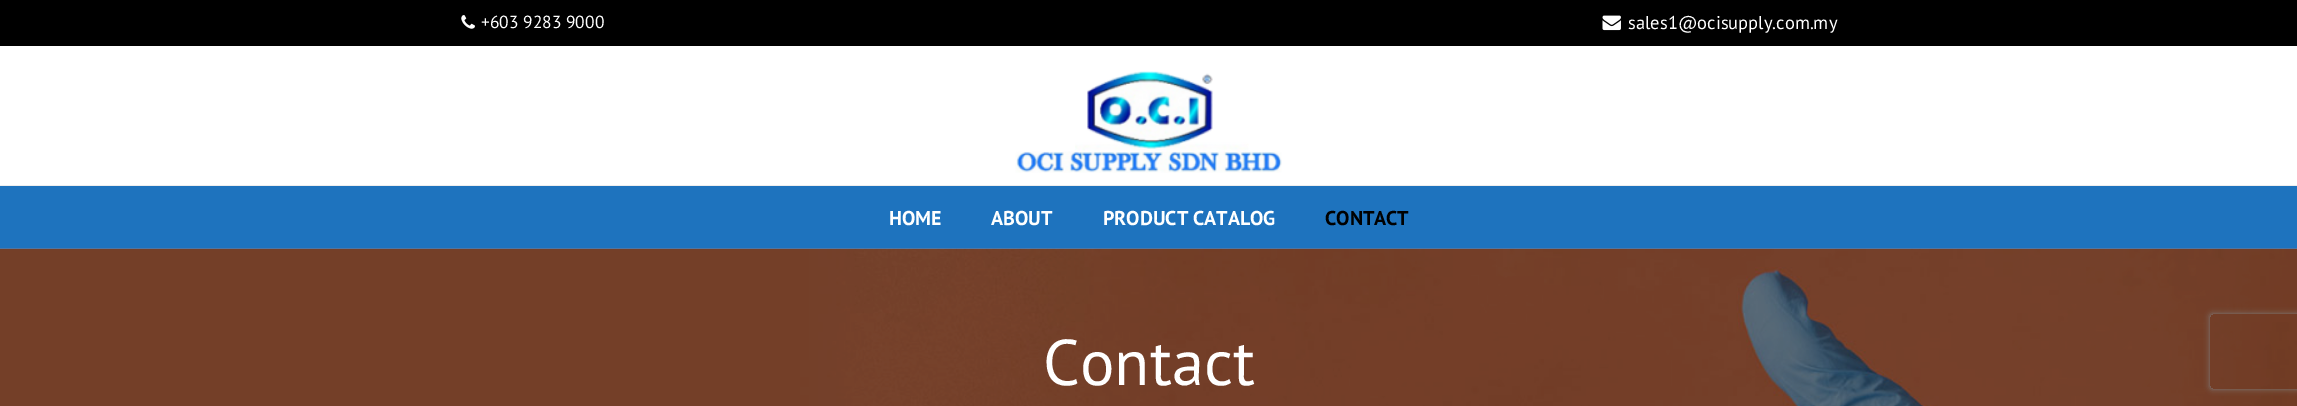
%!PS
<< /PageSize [2297 406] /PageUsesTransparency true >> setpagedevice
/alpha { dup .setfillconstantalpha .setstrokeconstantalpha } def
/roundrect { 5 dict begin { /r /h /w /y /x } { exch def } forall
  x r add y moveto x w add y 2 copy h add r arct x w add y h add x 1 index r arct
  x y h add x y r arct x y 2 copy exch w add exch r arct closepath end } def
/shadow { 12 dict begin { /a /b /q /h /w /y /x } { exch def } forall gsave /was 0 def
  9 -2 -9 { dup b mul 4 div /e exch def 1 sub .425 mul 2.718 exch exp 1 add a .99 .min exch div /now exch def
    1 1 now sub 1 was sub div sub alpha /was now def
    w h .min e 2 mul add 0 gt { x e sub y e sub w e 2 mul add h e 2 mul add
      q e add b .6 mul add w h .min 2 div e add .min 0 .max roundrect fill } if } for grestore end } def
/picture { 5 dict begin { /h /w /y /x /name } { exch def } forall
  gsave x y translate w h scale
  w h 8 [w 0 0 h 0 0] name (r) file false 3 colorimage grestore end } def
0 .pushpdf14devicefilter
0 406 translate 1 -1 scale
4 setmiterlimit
1 setgray
0 0 2297 406 rectfill
0 setgray
0 0 2297 46 rectfill
(img1.rgb) 461 15 14 14 picture
/PTSans-Regular [17.5 0 0 -17.5 0 0] selectfont
1 setgray
481 28 moveto (+603 9283 9000) show
(img2.rgb) 1602 15 19 16 picture
/PTSans-Regular [18.5 0 0 -18.5 0 0] selectfont
1628 29 moveto (sales1@ocisupply.com.my) show
(img3.rgb) 1015 71 267 102 picture
0.118 0.451 0.745 setrgbcolor
0 186 2297 63 rectfill
0.933 setgray
0 185 2297 1 rectfill
/PTSans-Bold [20 0 0 -20 0 0] selectfont
1 setgray
889 225 moveto (HOME) show
991 225 moveto (ABOUT) show
1103 225 moveto (PRODUCT CATALOG) show
0 setgray
1325 225 moveto (CONTACT) show
(img4.rgb) 0 248 2297 158 picture
/PTSans-Regular [64.5 0 0 -64.5 0 0] selectfont
1 setgray
1043 385 moveto (Contact) show
gsave
newpath 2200 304 moveto 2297 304 lineto 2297 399 lineto 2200 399 lineto closepath 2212.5 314 moveto 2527.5 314 lineto 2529 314 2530 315 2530 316.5 curveto 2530 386.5 lineto 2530 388 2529 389 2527.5 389 curveto 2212.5 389 lineto 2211 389 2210 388 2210 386.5 curveto 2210 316.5 lineto 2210 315 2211 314 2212.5 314 curveto closepath eoclip newpath
0.502 setgray
2210 314 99 75 2.5 3 1 shadow
grestore
.poppdf14devicefilter showpage
